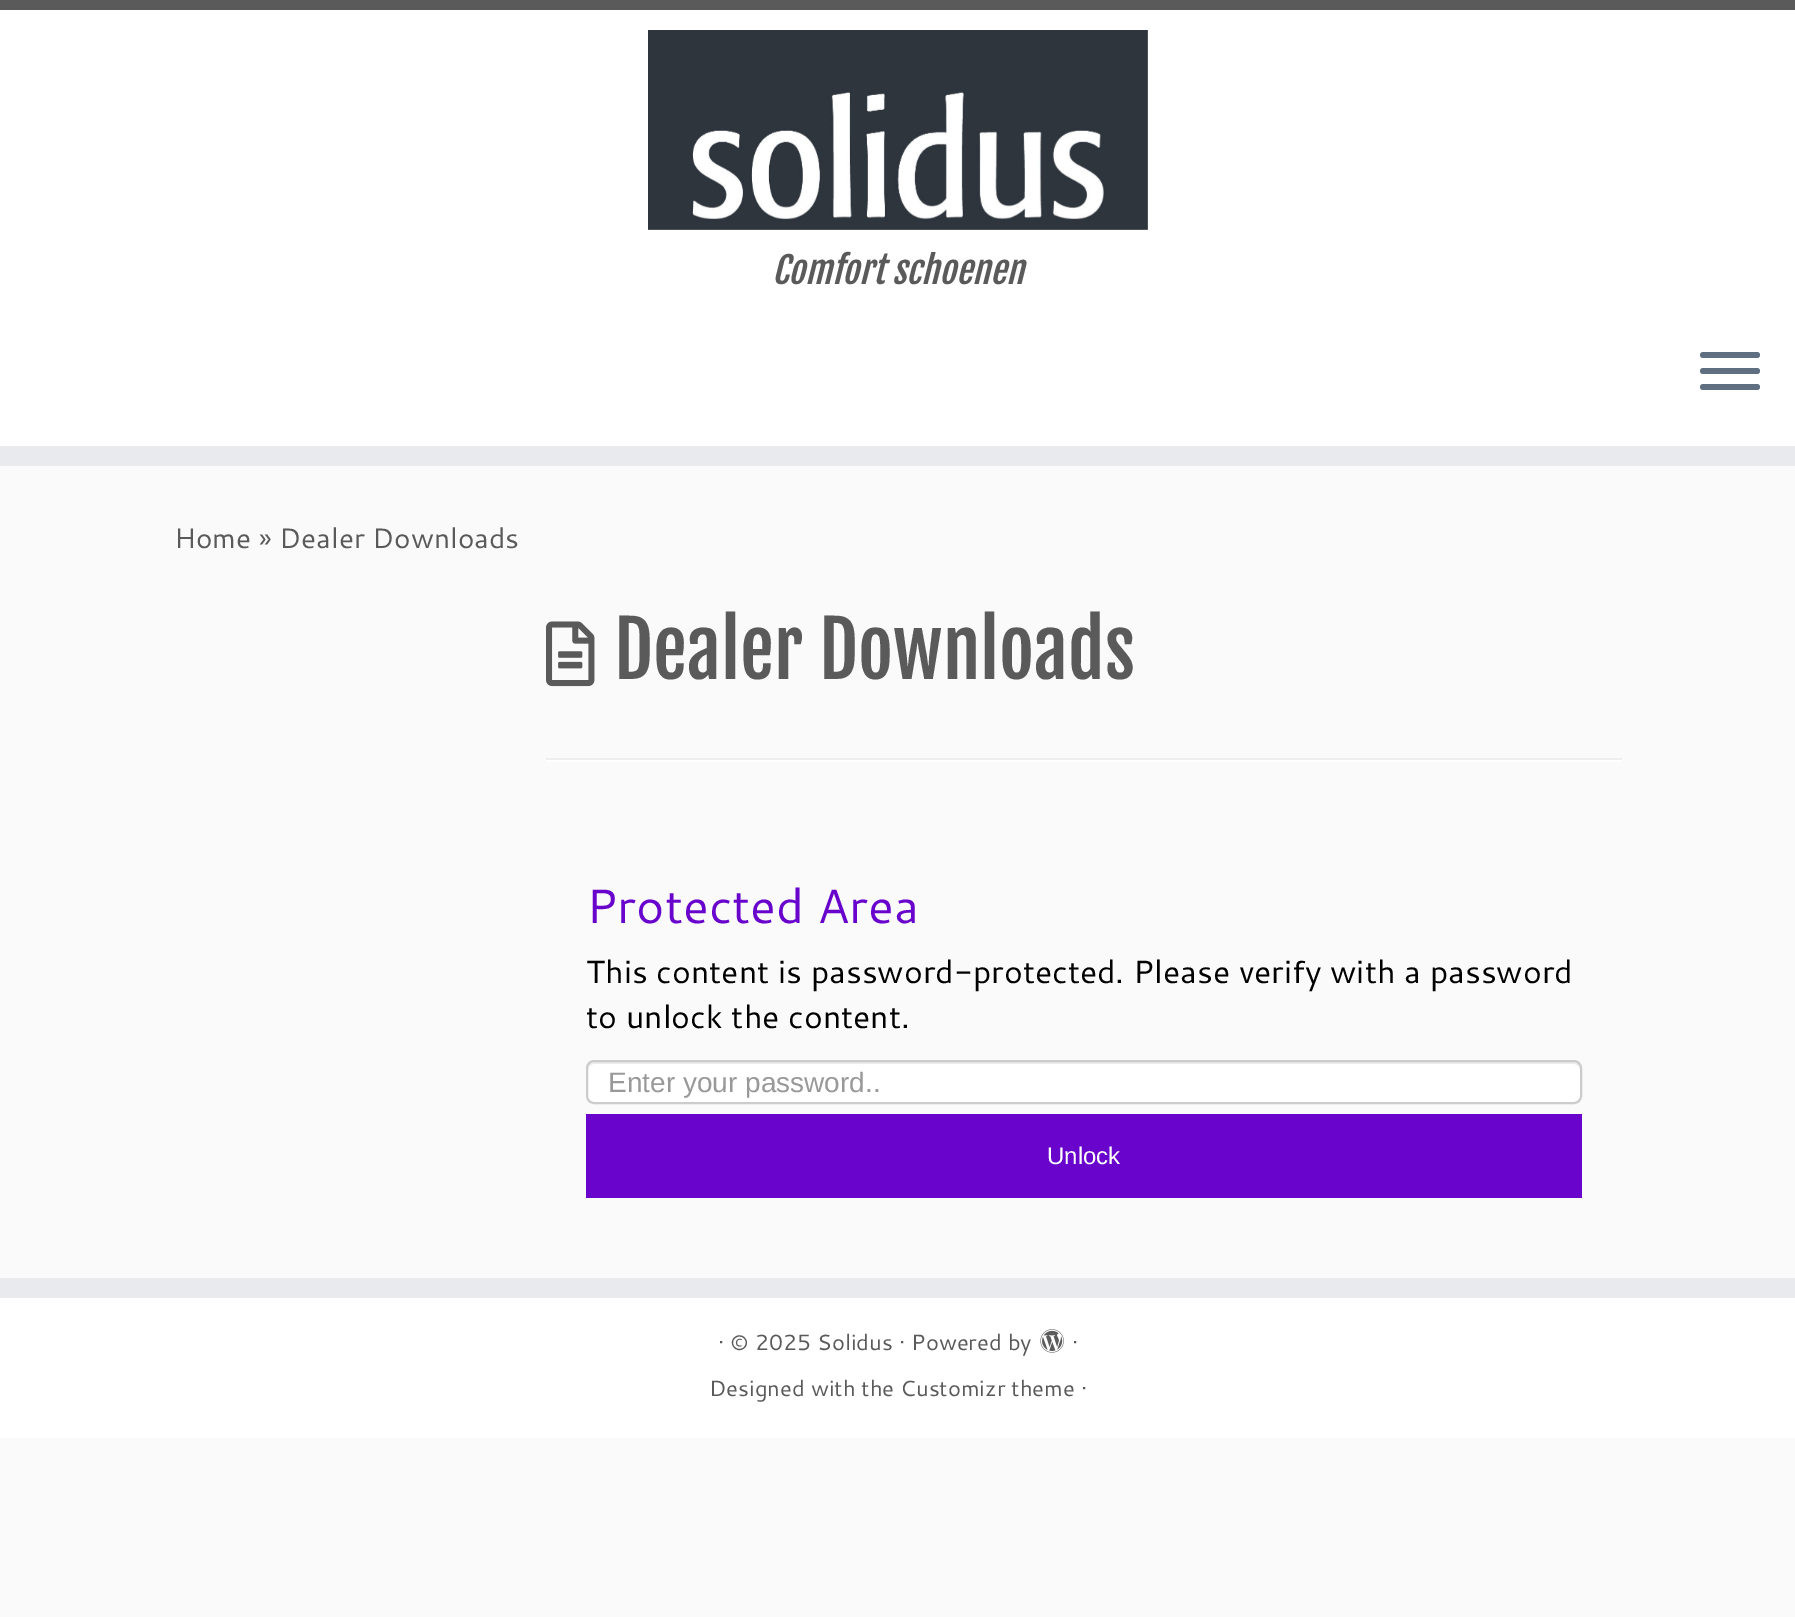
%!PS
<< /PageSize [1795 1617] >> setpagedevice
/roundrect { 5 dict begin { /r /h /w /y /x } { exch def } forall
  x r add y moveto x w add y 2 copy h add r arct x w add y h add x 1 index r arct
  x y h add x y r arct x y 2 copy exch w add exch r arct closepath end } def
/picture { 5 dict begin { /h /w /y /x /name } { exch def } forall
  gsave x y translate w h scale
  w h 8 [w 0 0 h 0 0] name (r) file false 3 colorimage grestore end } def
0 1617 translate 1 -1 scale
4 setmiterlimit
0.98 setgray
0 0 1795 1617 rectfill
1 setgray
0 10 1795 436 rectfill
0.353 setgray
0 0 1795 10 rectfill
0.914 0.918 0.933 setrgbcolor
0 446 1795 20 rectfill
(img1.rgb) 648 30 500 200 picture
/FjallaOne-Italic [36 0 0 -36 0 0] selectfont
0.353 setgray
772 284 moveto (Comfort schoenen) show
0.373 0.435 0.506 setrgbcolor
1700 352 60 6 3 roundrect fill
1700 368 60 6 3 roundrect fill
1700 384 60 6 3 roundrect fill
/Cantarell-Regular [28 0 0 -28 0 0] selectfont
0.353 setgray
174 548 moveto (Home » Dealer Downloads) show
(img2.rgb) 546 621 49 66 picture
/FjallaOne-Regular [76 0 0 -76 0 0] selectfont
614 679 moveto (Dealer Downloads) show
0.933 setgray
546 758 1076 2 rectfill
1 setgray
546 760 1076 2 rectfill
/Cantarell-Regular [48 0 0 -48 0 0] selectfont
0.408 0.016 0.8 setrgbcolor
586 923 moveto (Protected Area) show
/Cantarell-Regular [32 0 0 -32 0 0] selectfont
0 setgray
586 983 moveto (This content is password-protected. Please verify with a password) show
586 1028 moveto (to unlock the content.) show
1 setgray
586 1060 996 44 8 roundrect fill
0.925 setgray
newpath 594 1064 moveto 1574 1064 lineto 1577 1064 1580 1067 1580 1070 curveto 1580 1066 1579 1062 1574 1062 curveto 594 1062 lineto 589 1062 588 1066 588 1070 curveto 588 1067 591 1064 594 1064 curveto closepath fill
0.8 setgray
2 setlinewidth
587 1061 994 42 7 roundrect stroke
/LiberationSans-Regular [28 0 0 -28 0 0] selectfont
0.6 setgray
608 1092 moveto (Enter your password..) show
0.408 0.016 0.8 setrgbcolor
586 1114 996 84 rectfill
/LiberationSans-Regular [24 0 0 -24 0 0] selectfont
1 setgray
1047 1164 moveto (Unlock) show
0.914 0.918 0.933 setrgbcolor
0 1278 1795 20 rectfill
1 setgray
0 1298 1795 140 rectfill
/Cantarell-Regular [22 0 0 -22 0 0] selectfont
0.353 setgray
718 1350 moveto (· © 2025 Solidus · Powered by) show
(img3.rgb) 1040 1329 24 24 picture
1072 1350 moveto (·) show
709 1396 moveto (Designed with the Customizr theme ·) show
showpage
